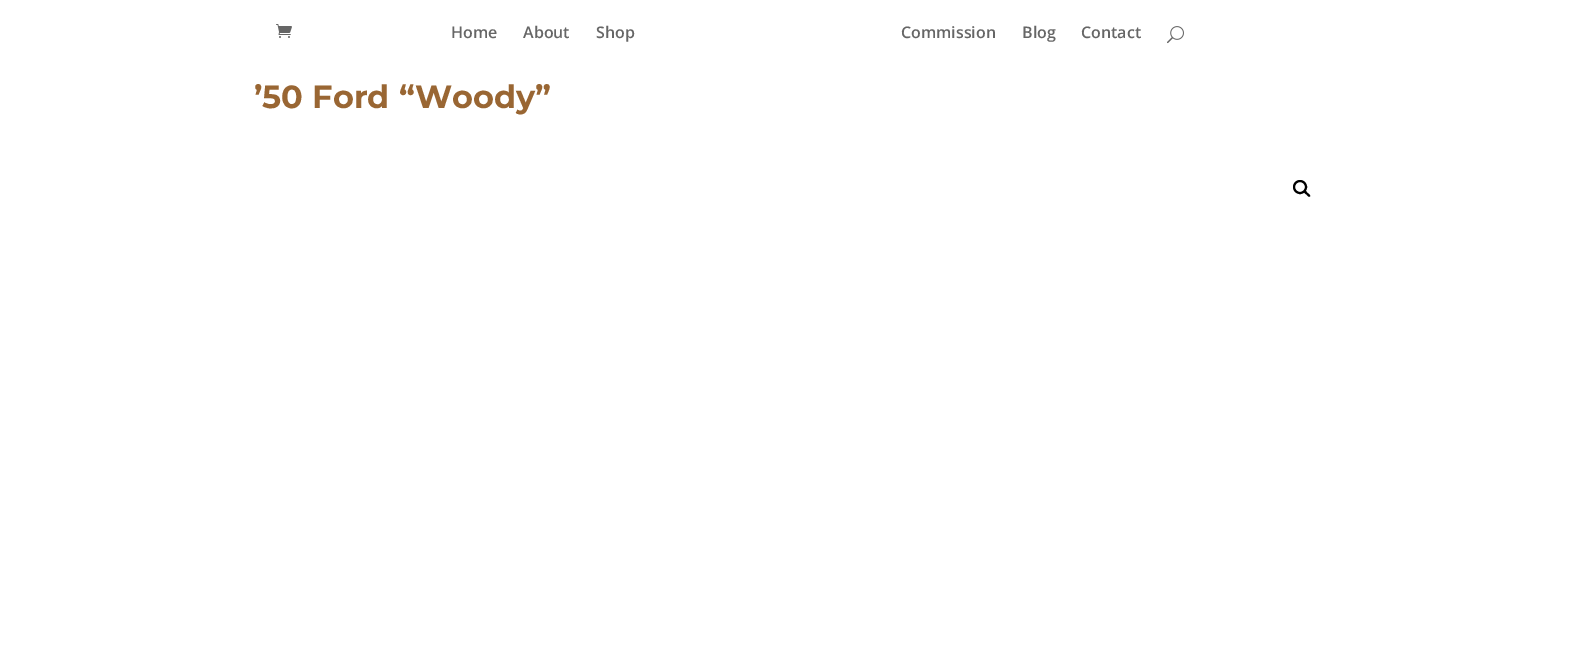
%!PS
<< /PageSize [1588 668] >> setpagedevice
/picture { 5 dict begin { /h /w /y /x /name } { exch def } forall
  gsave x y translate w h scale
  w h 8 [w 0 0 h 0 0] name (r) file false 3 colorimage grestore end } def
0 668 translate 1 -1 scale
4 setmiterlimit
1 setgray
0 0 1588 668 rectfill
(img1.rgb) 276 24 16 14 picture
/OpenSans-SemiBold [16 0 0 -16 0 0] selectfont
0.4 setgray
451 38 moveto (Home) show
523 38 moveto (About) show
596 38 moveto (Shop) show
901 38 moveto (Commission) show
1022 38 moveto (Blog) show
1081 38 moveto (Contact) show
(img2.rgb) 1167 26 17 18 picture
/Montserrat-Bold [32 0 0 -32 0 0] selectfont
0.6 0.4 0.2 setrgbcolor
254 108 moveto (’50 Ford “Woody”) show
0 setgray
2 setlinewidth
newpath 1300 187 6 0 360 arc closepath stroke
newpath 1304 191 moveto 1305.5 189.5 1307 192.5 1307.5 193 curveto 1308.5 193.5 1311 195.5 1310 196.5 curveto 1308.5 197.5 1307 195 1306.5 194.5 curveto 1305.5 194 1303 192 1304 191 curveto closepath fill
showpage
